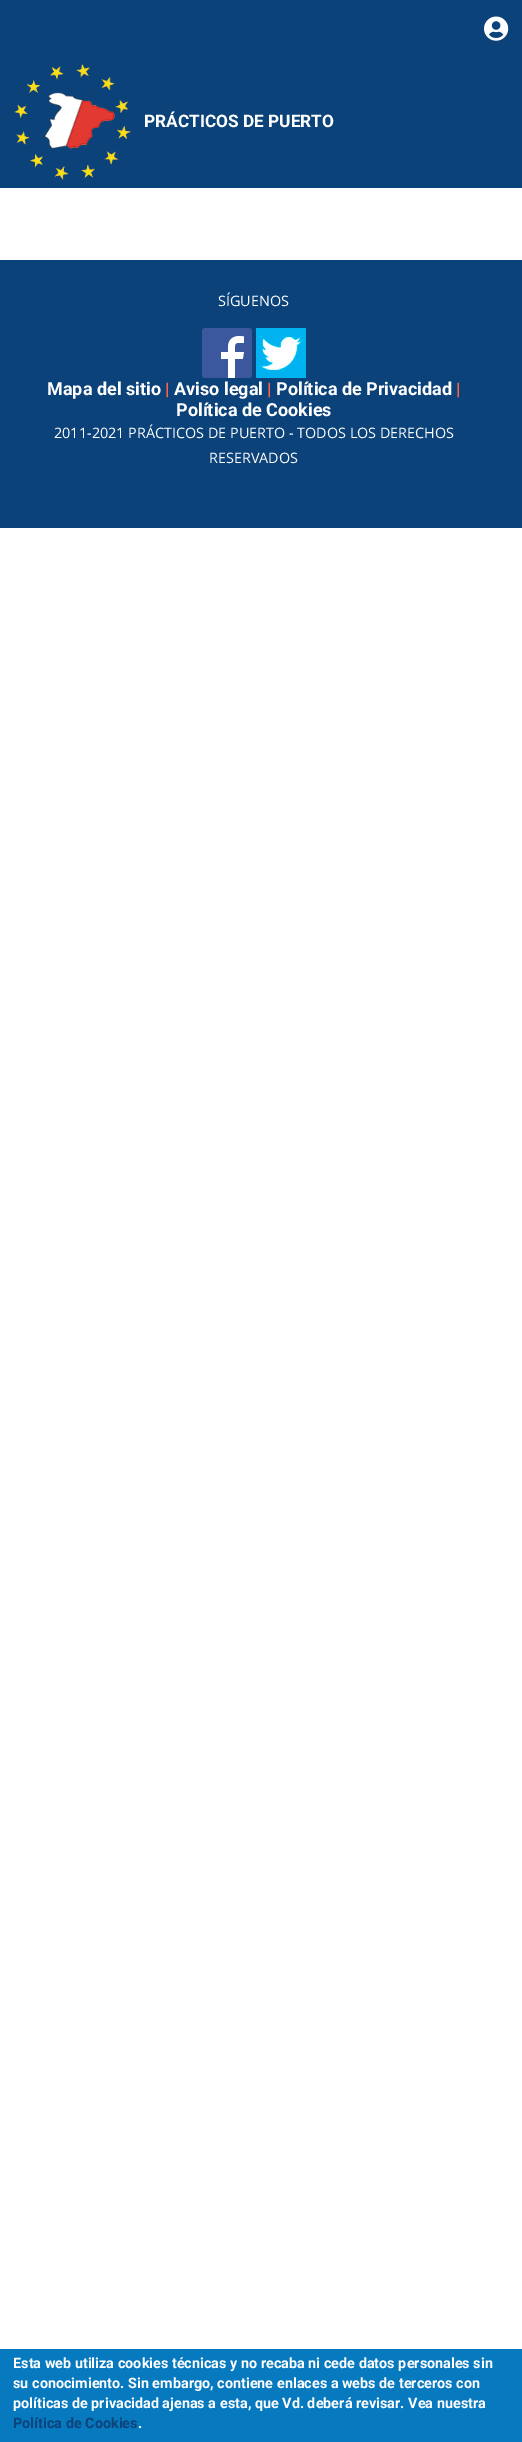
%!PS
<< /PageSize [522 2442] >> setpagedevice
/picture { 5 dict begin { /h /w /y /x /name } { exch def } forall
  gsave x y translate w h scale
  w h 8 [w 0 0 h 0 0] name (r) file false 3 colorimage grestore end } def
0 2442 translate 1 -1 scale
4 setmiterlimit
1 setgray
0 0 522 2442 rectfill
0.043 0.259 0.478 setrgbcolor
0 0 522 188 rectfill
(img1.rgb) 484 16 25 25 picture
(img2.rgb) 14 64 117 116 picture
/Roboto-Bold [17.25 0 0 -17.25 0 0] selectfont
1 setgray
144 127 moveto (PRÁCTICOS DE PUERTO) show
0.043 0.259 0.478 setrgbcolor
0 260 522 268 rectfill
/OpenSans-Regular [14.4 0 0 -14.4 0 0] selectfont
1 setgray
218 306 moveto (SÍGUENOS) show
(img3.rgb) 202 328 50 50 picture
(img4.rgb) 256 328 50 50 picture
/Roboto-Bold [18 0 0 -18 0 0] selectfont
47 395 moveto (Mapa del sitio) show
/Roboto-Bold [17.25 0 0 -17.25 0 0] selectfont
1 0.388 0.278 setrgbcolor
165 395 moveto (|) show
/Roboto-Bold [18 0 0 -18 0 0] selectfont
1 setgray
174 395 moveto (Aviso legal) show
/Roboto-Bold [17.25 0 0 -17.25 0 0] selectfont
1 0.388 0.278 setrgbcolor
267 395 moveto (|) show
/Roboto-Bold [18 0 0 -18 0 0] selectfont
1 setgray
276 395 moveto (Política de Privacidad) show
/Roboto-Bold [17.25 0 0 -17.25 0 0] selectfont
1 0.388 0.278 setrgbcolor
456 395 moveto (|) show
/Roboto-Bold [18 0 0 -18 0 0] selectfont
1 setgray
176 416 moveto (Política de Cookies) show
/OpenSans-Regular [14.4 0 0 -14.4 0 0] selectfont
54 438 moveto (2011-2021 PRÁCTICOS DE PUERTO - TODOS LOS DERECHOS) show
209 463 moveto (RESERVADOS) show
0.027 0.475 0.749 setrgbcolor
0 2349 522 93 rectfill
/Roboto-Bold [14.4 0 0 -14.4 0 0] selectfont
1 setgray
13 2368 moveto (Esta web utiliza cookies técnicas y no recaba ni cede datos personales sin) show
13 2388 moveto (su conocimiento. Sin embargo, contiene enlaces a webs de terceros con) show
13 2408 moveto (políticas de privacidad ajenas a esta, que Vd. deberá revisar. Vea nuestra) show
0.043 0.259 0.478 setrgbcolor
13 2428 moveto (Política de Cookies) show
1 setgray
138 2428 moveto (.) show
showpage
